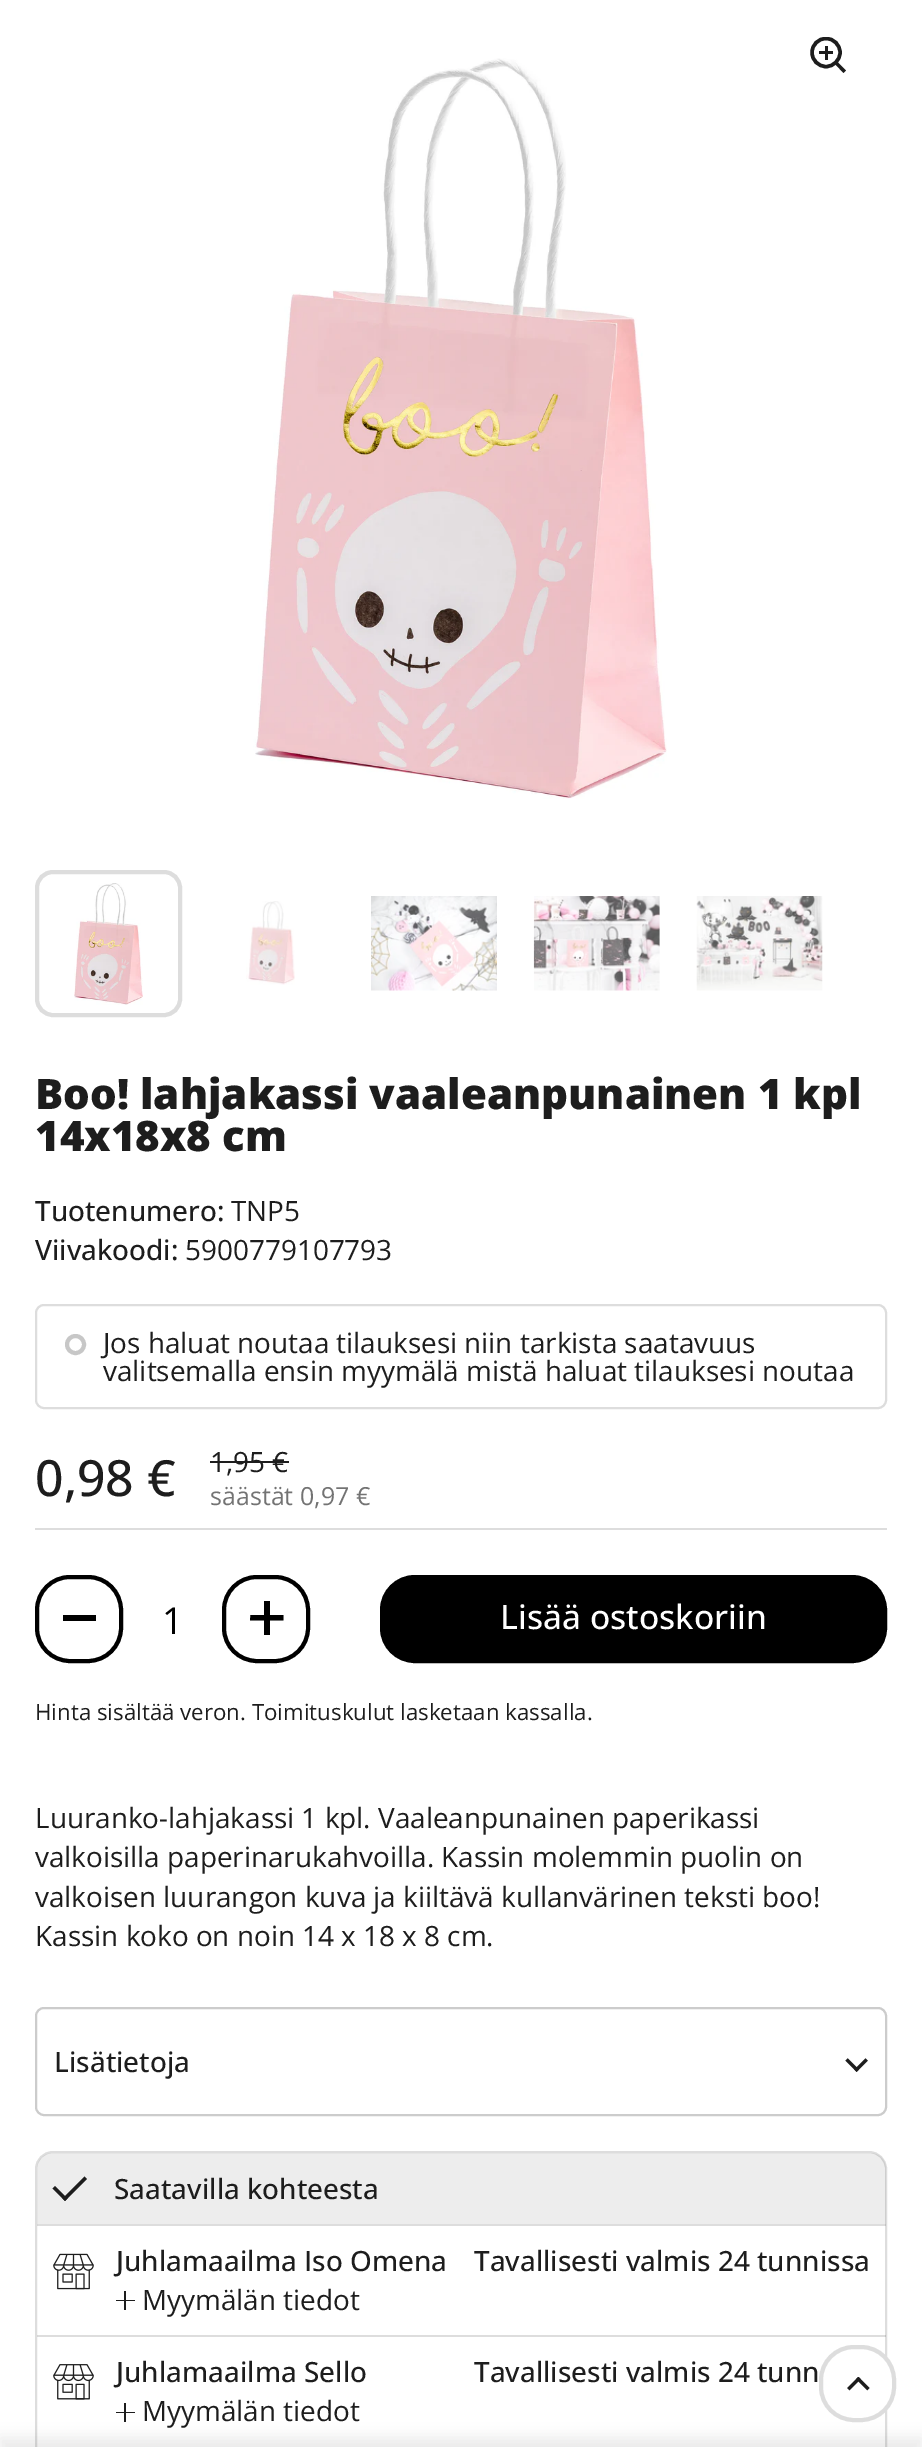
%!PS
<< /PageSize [922 2447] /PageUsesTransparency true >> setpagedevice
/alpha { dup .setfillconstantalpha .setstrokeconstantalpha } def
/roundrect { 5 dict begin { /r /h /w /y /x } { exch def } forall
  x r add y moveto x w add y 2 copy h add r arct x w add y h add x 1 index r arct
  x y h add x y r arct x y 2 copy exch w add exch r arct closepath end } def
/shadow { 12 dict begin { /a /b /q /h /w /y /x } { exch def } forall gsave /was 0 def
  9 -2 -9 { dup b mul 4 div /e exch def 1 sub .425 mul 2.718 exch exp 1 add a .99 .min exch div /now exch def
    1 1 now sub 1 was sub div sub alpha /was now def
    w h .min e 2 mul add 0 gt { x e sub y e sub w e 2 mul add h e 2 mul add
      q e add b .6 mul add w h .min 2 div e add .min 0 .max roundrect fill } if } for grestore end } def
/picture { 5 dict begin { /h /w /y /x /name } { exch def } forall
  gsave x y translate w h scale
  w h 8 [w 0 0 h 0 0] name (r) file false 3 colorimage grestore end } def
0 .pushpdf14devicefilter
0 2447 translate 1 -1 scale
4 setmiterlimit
1 setgray
0 0 922 2447 rectfill
(img1.rgb) 253 58 414 741 picture
gsave
810 37 37 37 rectclip
0.114 setgray
3.5 setlinewidth
newpath 826 52.5 14 0 360 arc closepath stroke
grestore
0.114 setgray
825 46 3 14 rectfill
819 51 14 3 rectfill
newpath 835.5 64.5 moveto 837.5 62 lineto 846 70.5 lineto 843.5 73 lineto closepath fill
0.867 setgray
4 setlinewidth
37 872 143 143 16 roundrect stroke
(img2.rgb) 74 883 69 122 picture
(img3.rgb) 246 901 49 84 picture
(img4.rgb) 371 896 126 95 picture
(img5.rgb) 533 896 127 95 picture
(img6.rgb) 696 896 127 95 picture
/OpenSans-ExtraBold [42 0 0 -42 0 0] selectfont
0.114 setgray
35 1109 moveto (Boo! lahjakassi vaaleanpunainen 1 kpl) show
35 1151 moveto (14x18x8 cm) show
/OpenSans-Medium [27.9 0 0 -27.9 0 0] selectfont
35 1221 moveto (Tuotenumero:) show
/OpenSans-Regular [27.9 0 0 -27.9 0 0] selectfont
231 1221 moveto (TNP5) show
/OpenSans-Medium [27.9 0 0 -27.9 0 0] selectfont
35 1260 moveto (Viivakoodi:) show
/OpenSans-Regular [27.9 0 0 -27.9 0 0] selectfont
185 1260 moveto (5900779107793) show
0.867 setgray
2 setlinewidth
36 1305 850 103 8 roundrect stroke
0.78 setgray
4 setlinewidth
newpath 75.5 1344.5 8.5 0 360 arc closepath stroke
0.114 setgray
103 1353 moveto (Jos haluat noutaa tilauksesi niin tarkista saatavuus) show
103 1381 moveto (valitsemalla ensin myymälä mistä haluat tilauksesi noutaa) show
/OpenSans-Medium [50 0 0 -50 0 0] selectfont
35 1496 moveto (0,98 €) show
/OpenSans-Regular [27.9 0 0 -27.9 0 0] selectfont
210 1472 moveto (1,95 €) show
210 1461 79 2 rectfill
/OpenSans-Regular [25 0 0 -25 0 0] selectfont
0.451 setgray
210 1505 moveto (säästät 0,97 €) show
0.867 setgray
35 1528 852 2 rectfill
0 setgray
37 1577 84 84 33 roundrect stroke
63 1615 33 6 rectfill
/OpenSans-Regular [37 0 0 -37 0 0] selectfont
162 1634 moveto (1) show
224 1577 84 84 33 roundrect stroke
264 1601 6 34 rectfill
newpath 283.5 1615 moveto 283.5 1620.5 lineto 250 1620.5 lineto 250.5 1615 lineto closepath fill
382 1577 503 84 33 roundrect gsave fill grestore
stroke
/OpenSans-Medium [33.5 0 0 -33.5 0 0] selectfont
1 setgray
500 1629 moveto (Lisää ostoskoriin) show
/OpenSans-Regular [22.3 0 0 -22.3 0 0] selectfont
0.114 setgray
35 1720 moveto (Hinta sisältää veron. Toimituskulut lasketaan kassalla.) show
/OpenSans-Regular [27.9 0 0 -27.9 0 0] selectfont
35 1828 moveto (Luuranko-lahjakassi 1 kpl. Vaaleanpunainen paperikassi) show
35 1867 moveto (valkoisilla paperinarukahvoilla. Kassin molemmin puolin on) show
35 1907 moveto (valkoisen luurangon kuva ja kiiltävä kullanvärinen teksti boo!) show
35 1946 moveto (Kassin koko on noin 14 x 18 x 8 cm.) show
0.8 setgray
2 setlinewidth
36 2008 850 107 8 roundrect stroke
/OpenSans-Medium [27.9 0 0 -27.9 0 0] selectfont
0.114 setgray
54 2072 moveto (Lisätietoja) show
(img7.rgb) 845 2058 23 14 picture
0.867 setgray
36 2152 850 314 17 roundrect stroke
0.08 alpha
0.114 setgray
newpath 53 2153 moveto 870 2153 lineto 879 2153 886 2160 886 2169 curveto 886 2224 lineto 37 2224 lineto 37 2169 lineto 37 2160 44 2153 53 2153 curveto closepath fill
1 alpha
newpath 52.5 2188.5 moveto 55 2186 lineto 67.5 2198.5 lineto 65 2201 lineto closepath fill
newpath 84.5 2176.5 moveto 87 2179 lineto 65 2201 lineto 62.5 2198.5 lineto closepath fill
114 2199 moveto (Saatavilla kohteesta) show
0.15 alpha
37 2224 849 2 rectfill
1 alpha
(img8.rgb) 53 2253 41 37 picture
116 2271 moveto (Juhlamaailma Iso Omena) show
124 2291 2 19 rectfill
/OpenSans-Regular [27.9 0 0 -27.9 0 0] selectfont
142 2310 moveto (Myymälän tiedot) show
116 2300 19 1 rectfill
/OpenSans-Medium [27.9 0 0 -27.9 0 0] selectfont
474 2271 moveto (Tavallisesti valmis 24 tunnissa) show
0.15 alpha
37 2335 849 2 rectfill
1 alpha
(img9.rgb) 53 2364 41 36 picture
116 2382 moveto (Juhlamaailma Sello) show
124 2403 2 19 rectfill
/OpenSans-Regular [27.9 0 0 -27.9 0 0] selectfont
142 2421 moveto (Myymälän tiedot) show
116 2412 19 1 rectfill
/OpenSans-Medium [27.9 0 0 -27.9 0 0] selectfont
474 2382 moveto (Tavallisesti valmis 24 tunn) show
1 setgray
819 2345 77 77 35 roundrect fill
0.15 alpha
0.114 setgray
4 setlinewidth
821 2347 73 73 33 roundrect stroke
1 alpha
(img10.rgb) 847 2377 23 14 picture
0 setgray
0 2438 922 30 0 7 0.08 shadow
.poppdf14devicefilter showpage
